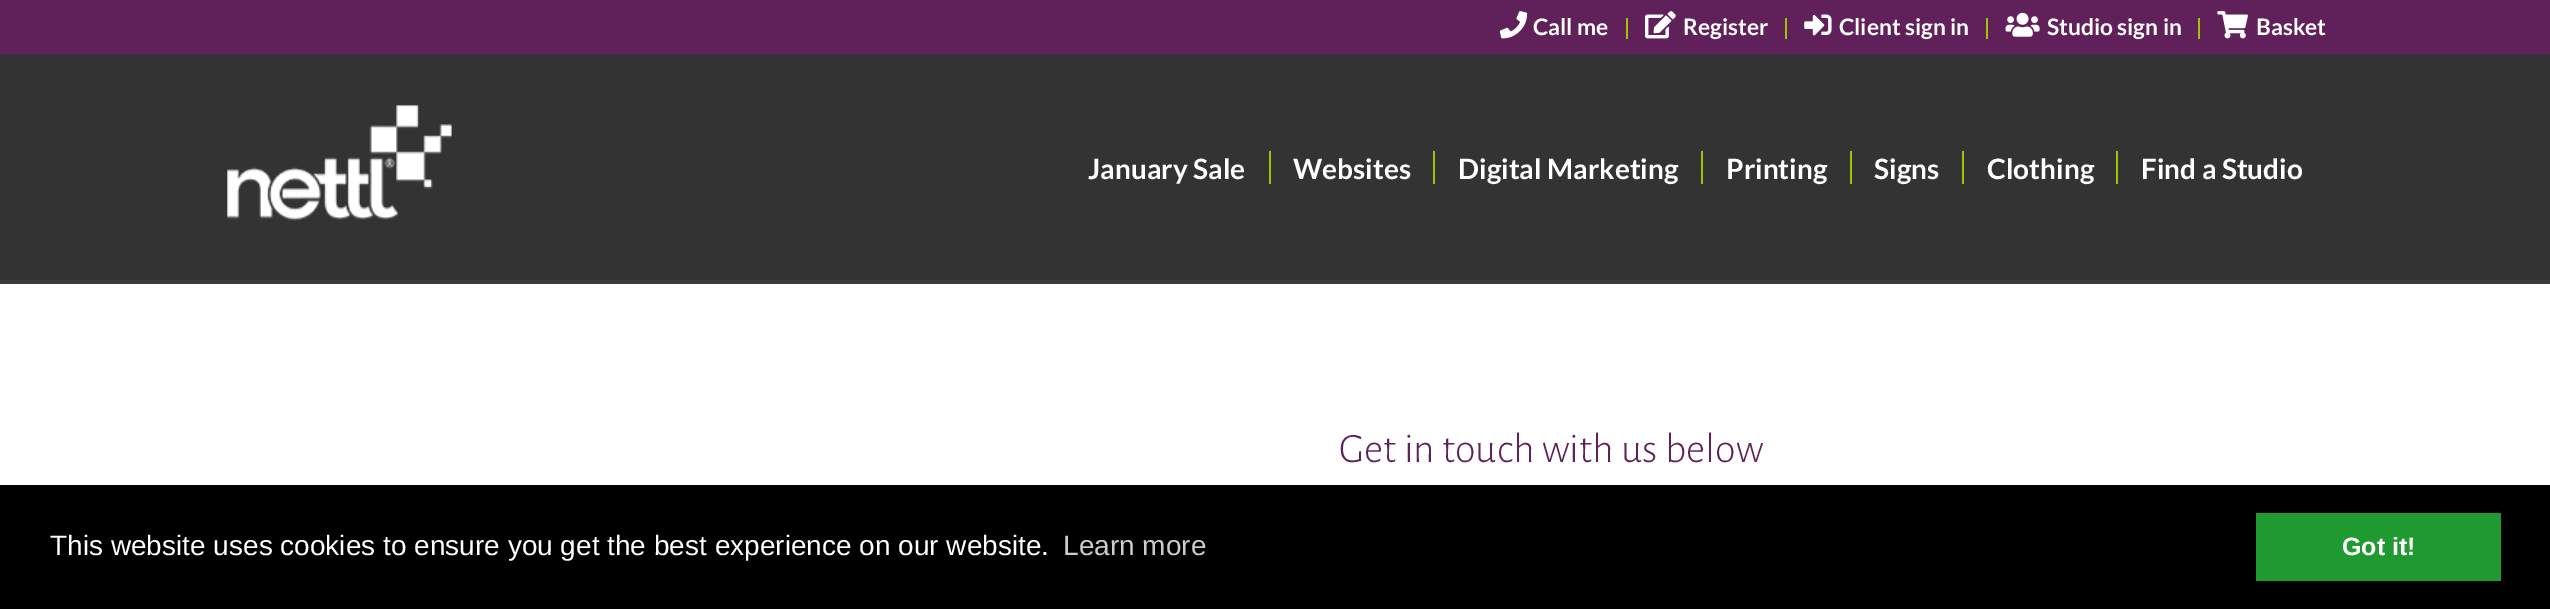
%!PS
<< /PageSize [2550 609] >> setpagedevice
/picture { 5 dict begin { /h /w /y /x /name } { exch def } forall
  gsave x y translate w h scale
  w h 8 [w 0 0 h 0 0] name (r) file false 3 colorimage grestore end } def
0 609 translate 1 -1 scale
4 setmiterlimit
0.2 setgray
0 0 2550 609 rectfill
0.376 0.125 0.353 setrgbcolor
0 0 2550 54 rectfill
0.6 0.78 0 setrgbcolor
1626 18 2 21 rectfill
(img1.rgb) 1499 11 29 28 picture
/Lato-Bold [22.75 0 0 -22.75 0 0] selectfont
1 setgray
1533 35 moveto (Call me) show
0.6 0.78 0 setrgbcolor
1785 18 2 21 rectfill
(img2.rgb) 1645 11 31 28 picture
1 setgray
1683 35 moveto (Register) show
0.6 0.78 0 setrgbcolor
1986 18 2 21 rectfill
(img3.rgb) 1804 14 28 22 picture
1 setgray
1839 35 moveto (Client sign in) show
0.6 0.78 0 setrgbcolor
2198 18 2 21 rectfill
(img4.rgb) 2005 12 35 25 picture
1 setgray
2047 35 moveto (Studio sign in) show
(img5.rgb) 2217 11 31 28 picture
2256 35 moveto (Basket) show
(img6.rgb) 227 105 225 116 picture
/Lato-Bold [28 0 0 -28 0 0] selectfont
1088 179 moveto (January Sale) show
1293 179 moveto (Websites) show
0.6 0.78 0 setrgbcolor
1269 151 2 33 rectfill
1 setgray
1458 179 moveto (Digital Marketing) show
0.6 0.78 0 setrgbcolor
1433 151 2 33 rectfill
1 setgray
1726 179 moveto (Printing) show
0.6 0.78 0 setrgbcolor
1701 151 2 33 rectfill
1 setgray
1874 179 moveto (Signs) show
0.6 0.78 0 setrgbcolor
1850 151 2 33 rectfill
1 setgray
1987 179 moveto (Clothing) show
0.6 0.78 0 setrgbcolor
1962 151 2 33 rectfill
1 setgray
2141 179 moveto (Find a Studio) show
0.6 0.78 0 setrgbcolor
2116 151 2 33 rectfill
1 setgray
0 284 2550 201 rectfill
0.239 setgray
0 282 2550 2 rectfill
0.231 setgray
0 280 2550 2 rectfill
/AlegreyaSans-Light [42 0 0 -42 0 0] selectfont
0.376 0.125 0.353 setrgbcolor
1339 462 moveto (Get in touch with us below) show
0 setgray
0 485 2550 124 rectfill
/LiberationSans-Regular [28 0 0 -28 0 0] selectfont
1 setgray
50 555 moveto (This website uses cookies to ensure you get the best experience on our website.) show
0.8 setgray
1063 555 moveto (Learn more) show
0.122 0.604 0.188 setrgbcolor
2256 513 245 68 rectfill
/LiberationSans-Bold [25 0 0 -25 0 0] selectfont
1 setgray
2342 555 moveto (Got it!) show
showpage
